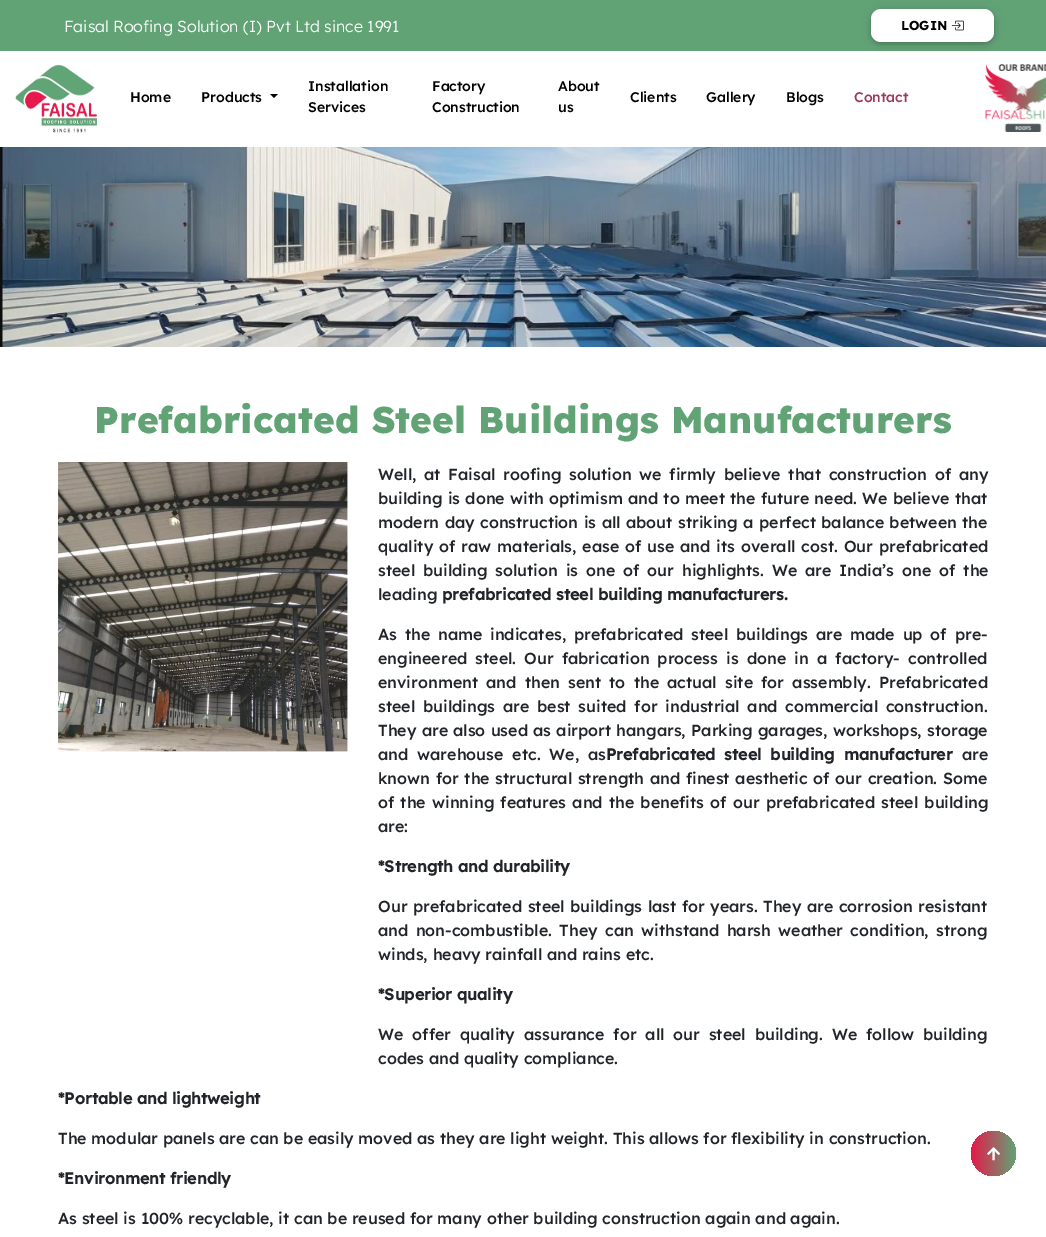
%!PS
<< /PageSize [1046 1237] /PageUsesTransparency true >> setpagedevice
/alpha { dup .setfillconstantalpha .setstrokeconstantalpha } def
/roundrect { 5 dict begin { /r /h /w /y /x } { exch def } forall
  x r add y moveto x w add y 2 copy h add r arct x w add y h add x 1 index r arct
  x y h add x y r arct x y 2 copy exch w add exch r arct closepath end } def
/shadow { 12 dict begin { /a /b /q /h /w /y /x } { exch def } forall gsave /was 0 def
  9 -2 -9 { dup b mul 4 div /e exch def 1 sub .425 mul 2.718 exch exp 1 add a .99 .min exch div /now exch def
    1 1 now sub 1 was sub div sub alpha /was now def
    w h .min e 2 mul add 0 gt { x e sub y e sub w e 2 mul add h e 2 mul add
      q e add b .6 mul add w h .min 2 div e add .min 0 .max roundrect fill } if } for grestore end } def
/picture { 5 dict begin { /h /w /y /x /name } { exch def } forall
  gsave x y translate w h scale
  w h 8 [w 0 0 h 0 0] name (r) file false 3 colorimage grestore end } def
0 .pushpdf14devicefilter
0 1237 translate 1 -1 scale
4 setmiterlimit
1 setgray
0 0 1046 1237 rectfill
0.38 0.639 0.459 setrgbcolor
0 0 1046 51 rectfill
/Lexend-Light [16 0 0 -16 0 0] selectfont
1 setgray
64 32 moveto (Faisal Roofing Solution \(I\) Pvt Ltd since 1991) show
0 setgray
871 11 123 33 10 5 0.12 shadow
871 11 123 33 10 2.5 0.16 shadow
1 setgray
871 9 123 33 10 roundrect fill
/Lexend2-Bold [13 0 0 -13 0 0] selectfont
0 setgray
901 30 moveto (LOGIN) show
(img1.rgb) 951 20 13 11 picture
(img2.rgb) 15 64 82 69 picture
/Lexend-Medium [14 0 0 -14 0 0] selectfont
130 102 moveto (Home) show
201 102 moveto (Products) show
newpath 270 94 moveto 278 94 lineto 274 98 lineto closepath fill
308 91 moveto (Installation) show
308 112 moveto (Services) show
432 91 moveto (Factory) show
432 112 moveto (Construction) show
558 91 moveto (About) show
558 112 moveto (us) show
630 102 moveto (Clients) show
706 102 moveto (Gallery) show
786 102 moveto (Blogs) show
0.627 0.22 0.345 setrgbcolor
854 102 moveto (Contact) show
(img3.rgb) 984 64 62 68 picture
(img4.rgb) 0 147 1046 200 picture
/Lexend-ExtraBold [37 0 0 -37 0 0] selectfont
0.38 0.639 0.459 setrgbcolor
94 433 moveto (Prefabricated Steel Buildings Manufacturers) show
(img5.rgb) 58 462 290 290 picture
/Lexend-Medium [16 0 0 -16 0 0] selectfont
0.129 0.145 0.161 setrgbcolor
378 480 moveto 3.1 0 32 (Well, at Faisal roofing solution we firmly believe that construction of any) widthshow
378 504 moveto 0.6 0 32 (building is done with optimism and to meet the future need. We believe that) widthshow
378 528 moveto 0.75 0 32 (modern day construction is all about striking a perfect balance between the) widthshow
378 552 moveto 1.25 0 32 (quality of raw materials, ease of use and its overall cost. Our prefabricated) widthshow
378 576 moveto 3.25 0 32 (steel building solution is one of our highlights. We are India’s one of the) widthshow
378 600 moveto (leading) show
/Lexend-Bold [16 0 0 -16 0 0] selectfont
442 600 moveto (prefabricated steel building manufacturers.) show
/Lexend-Medium [16 0 0 -16 0 0] selectfont
378 640 moveto 3.1 0 32 (As the name indicates, prefabricated steel buildings are made up of pre-) widthshow
378 664 moveto 3.5 0 32 (engineered steel.) widthshow
524 664 moveto 3.5 0 32 (Our fabrication process is done in a factory- controlled) widthshow
378 688 moveto 3.5 0 32 (environment and then sent to the actual site for assembly. Prefabricated) widthshow
378 712 moveto 3.1 0 32 (steel buildings are best suited for industrial and commercial construction.) widthshow
378 736 moveto 0.5 0 32 (They are also used as airport hangars, Parking garages, workshops, storage) widthshow
378 760 moveto 4.25 0 32 (and warehouse etc. We, as) widthshow
/Lexend-Bold [16 0 0 -16 0 0] selectfont
606 760 moveto 4.25 0 32 (Prefabricated steel building manufacturer) widthshow
/Lexend-Medium [16 0 0 -16 0 0] selectfont
962 760 moveto (are) show
378 784 moveto 1 0 32 (known for the structural strength and finest aesthetic of our creation. Some) widthshow
378 808 moveto 1.5 0 32 (of the winning features and the benefits of our prefabricated steel building) widthshow
378 832 moveto (are:) show
/Lexend-Bold [16 0 0 -16 0 0] selectfont
378 872 moveto (*Strength and durability) show
/Lexend-Medium [16 0 0 -16 0 0] selectfont
378 912 moveto 0.75 0 32 (Our prefabricated steel buildings last for years. They are corrosion resistant) widthshow
378 936 moveto 2.75 0 32 (and non-combustible. They can withstand harsh weather condition, strong) widthshow
378 960 moveto (winds, heavy rainfall and rains etc.) show
/Lexend-Bold [16 0 0 -16 0 0] selectfont
378 1000 moveto (*Superior quality) show
/Lexend-Medium [16 0 0 -16 0 0] selectfont
378 1040 moveto 4.25 0 32 (We offer quality assurance for all our steel building. We follow building) widthshow
378 1064 moveto (codes and quality compliance.) show
/Lexend-Bold [16 0 0 -16 0 0] selectfont
58 1104 moveto (*Portable and lightweight) show
/Lexend-Medium [16 0 0 -16 0 0] selectfont
58 1144 moveto (The modular panels are can be easily moved as they are light weight. This allows for flexibility in construction.) show
/Lexend-Bold [16 0 0 -16 0 0] selectfont
58 1184 moveto (*Environment friendly) show
/Lexend-Medium [16 0 0 -16 0 0] selectfont
58 1224 moveto (As steel is 100% recyclable, it can be reused for many other building construction again and again.) show
gsave newpath 993.5 1153.5 22.5 0 360 arc closepath clip newpath
<< /ShadingType 2 /ColorSpace /DeviceRGB /Coords [971 1153 1016 1153] /Extend [true true] /Function << /FunctionType 2 /Domain [0 1] /C0 [0.898 0.102 0.294] /C1 [0.38 0.639 0.459] /N 1 >> >> shfill grestore
(img6.rgb) 987 1147 13 14 picture
.poppdf14devicefilter showpage
